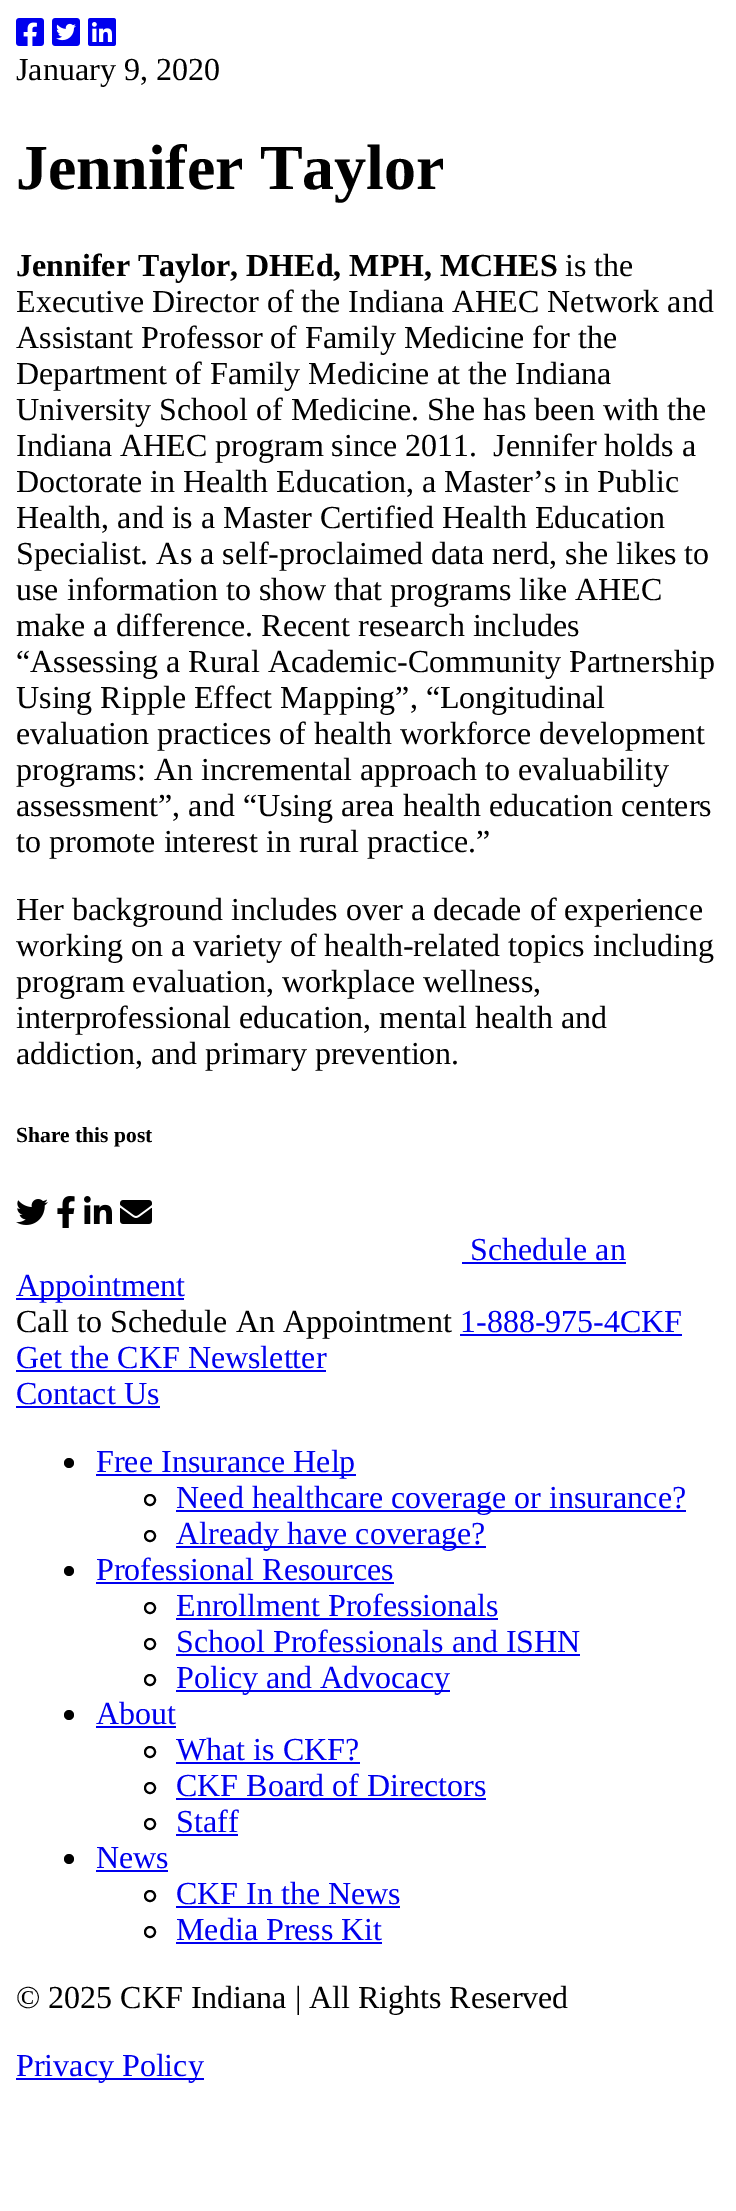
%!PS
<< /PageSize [736 2211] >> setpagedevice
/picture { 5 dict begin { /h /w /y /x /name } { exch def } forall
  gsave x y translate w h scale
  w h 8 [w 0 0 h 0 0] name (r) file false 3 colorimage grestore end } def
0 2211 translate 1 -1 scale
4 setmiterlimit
1 setgray
0 0 736 2211 rectfill
(img1.rgb) 16 18 28 28 picture
(img2.rgb) 52 18 28 28 picture
(img3.rgb) 88 18 28 28 picture
/LiberationSerif-Regular [32 0 0 -32 0 0] selectfont
0 setgray
16 80 moveto (January 9, 2020) show
/LiberationSerif-Bold [64 0 0 -64 0 0] selectfont
16 189 moveto (Jennifer Taylor) show
/LiberationSerif-Bold [32 0 0 -32 0 0] selectfont
16 276 moveto (Jennifer Taylor, DHEd, MPH, MCHES) show
/LiberationSerif-Regular [32 0 0 -32 0 0] selectfont
565 276 moveto (is the) show
16 312 moveto (Executive Director of the Indiana AHEC Network and) show
16 348 moveto (Assistant Professor of Family Medicine for the) show
16 384 moveto (Department of Family Medicine at the Indiana) show
16 420 moveto (University School of Medicine. She has been with the) show
16 456 moveto (Indiana AHEC program since 2011.  Jennifer holds a) show
16 492 moveto (Doctorate in Health Education, a Master’s in Public) show
16 528 moveto (Health, and is a Master Certified Health Education) show
16 564 moveto (Specialist. As a self-proclaimed data nerd, she likes to) show
16 600 moveto (use information to show that programs like AHEC) show
16 636 moveto (make a difference. Recent research includes) show
16 672 moveto (“Assessing a Rural Academic-Community Partnership) show
16 708 moveto (Using Ripple Effect Mapping”, “Longitudinal) show
16 744 moveto (evaluation practices of health workforce development) show
16 780 moveto (programs: An incremental approach to evaluability) show
16 816 moveto (assessment”, and “Using area health education centers) show
16 852 moveto (to promote interest in rural practice.”) show
16 920 moveto (Her background includes over a decade of experience) show
16 956 moveto (working on a variety of health-related topics including) show
16 992 moveto (program evaluation, workplace wellness,) show
16 1028 moveto (interprofessional education, mental health and) show
16 1064 moveto (addiction, and primary prevention.) show
/LiberationSerif-Bold [21.5 0 0 -21.5 0 0] selectfont
16 1142 moveto (Share this post) show
(img4.rgb) 16 1199 32 26 picture
(img5.rgb) 57 1196 18 32 picture
(img6.rgb) 84 1196 28 28 picture
(img7.rgb) 120 1200 32 24 picture
/LiberationSerif-Regular [32 0 0 -32 0 0] selectfont
0 0 0.933 setrgbcolor
470 1260 moveto (Schedule an) show
462 1262 164 2 rectfill
16 1298 168 2 rectfill
16 1296 moveto (Appointment) show
0 setgray
16 1332 moveto (Call to Schedule An Appointment) show
0 0 0.933 setrgbcolor
460 1332 moveto (1-888-975-4CKF) show
460 1334 222 2 rectfill
16 1368 moveto (Get the CKF Newsletter) show
16 1370 310 2 rectfill
16 1404 moveto (Contact Us) show
16 1406 144 2 rectfill
0 setgray
newpath 69 1463 5 0 360 arc closepath fill
0 0 0.933 setrgbcolor
96 1474 260 2 rectfill
96 1472 moveto (Free Insurance Help) show
0 setgray
2 setlinewidth
newpath 150 1500 5 0 360 arc closepath stroke
0 0 0.933 setrgbcolor
176 1510 510 2 rectfill
176 1508 moveto (Need healthcare coverage or insurance?) show
0 setgray
newpath 150 1536 5 0 360 arc closepath stroke
0 0 0.933 setrgbcolor
176 1546 310 2 rectfill
176 1544 moveto (Already have coverage?) show
0 setgray
newpath 69 1571 5 0 360 arc closepath fill
0 0 0.933 setrgbcolor
96 1580 moveto (Professional Resources) show
96 1582 298 2 rectfill
0 setgray
newpath 150 1608 5 0 360 arc closepath stroke
0 0 0.933 setrgbcolor
176 1616 moveto (Enrollment Professionals) show
176 1618 322 2 rectfill
0 setgray
newpath 150 1644 5 0 360 arc closepath stroke
0 0 0.933 setrgbcolor
176 1652 moveto (School Professionals and ISHN) show
176 1654 404 2 rectfill
0 setgray
newpath 150 1680 5 0 360 arc closepath stroke
0 0 0.933 setrgbcolor
176 1690 274 2 rectfill
176 1688 moveto (Policy and Advocacy) show
0 setgray
newpath 69 1715 5 0 360 arc closepath fill
0 0 0.933 setrgbcolor
96 1724 moveto (About) show
96 1726 80 2 rectfill
0 setgray
newpath 150 1752 5 0 360 arc closepath stroke
0 0 0.933 setrgbcolor
176 1760 moveto (What is CKF?) show
176 1762 184 2 rectfill
0 setgray
newpath 150 1788 5 0 360 arc closepath stroke
0 0 0.933 setrgbcolor
176 1796 moveto (CKF Board of Directors) show
176 1798 310 2 rectfill
0 setgray
newpath 150 1824 5 0 360 arc closepath stroke
0 0 0.933 setrgbcolor
176 1832 moveto (Staff) show
176 1834 62 2 rectfill
0 setgray
newpath 69 1859 5 0 360 arc closepath fill
0 0 0.933 setrgbcolor
96 1868 moveto (News) show
96 1870 72 2 rectfill
0 setgray
newpath 150 1896 5 0 360 arc closepath stroke
0 0 0.933 setrgbcolor
176 1904 moveto (CKF In the News) show
176 1906 224 2 rectfill
0 setgray
newpath 150 1932 5 0 360 arc closepath stroke
0 0 0.933 setrgbcolor
176 1940 moveto (Media Press Kit) show
176 1942 206 2 rectfill
0 setgray
16 2008 moveto (© 2025 CKF Indiana | All Rights Reserved) show
0 0 0.933 setrgbcolor
16 2078 188 2 rectfill
16 2076 moveto (Privacy Policy) show
showpage
